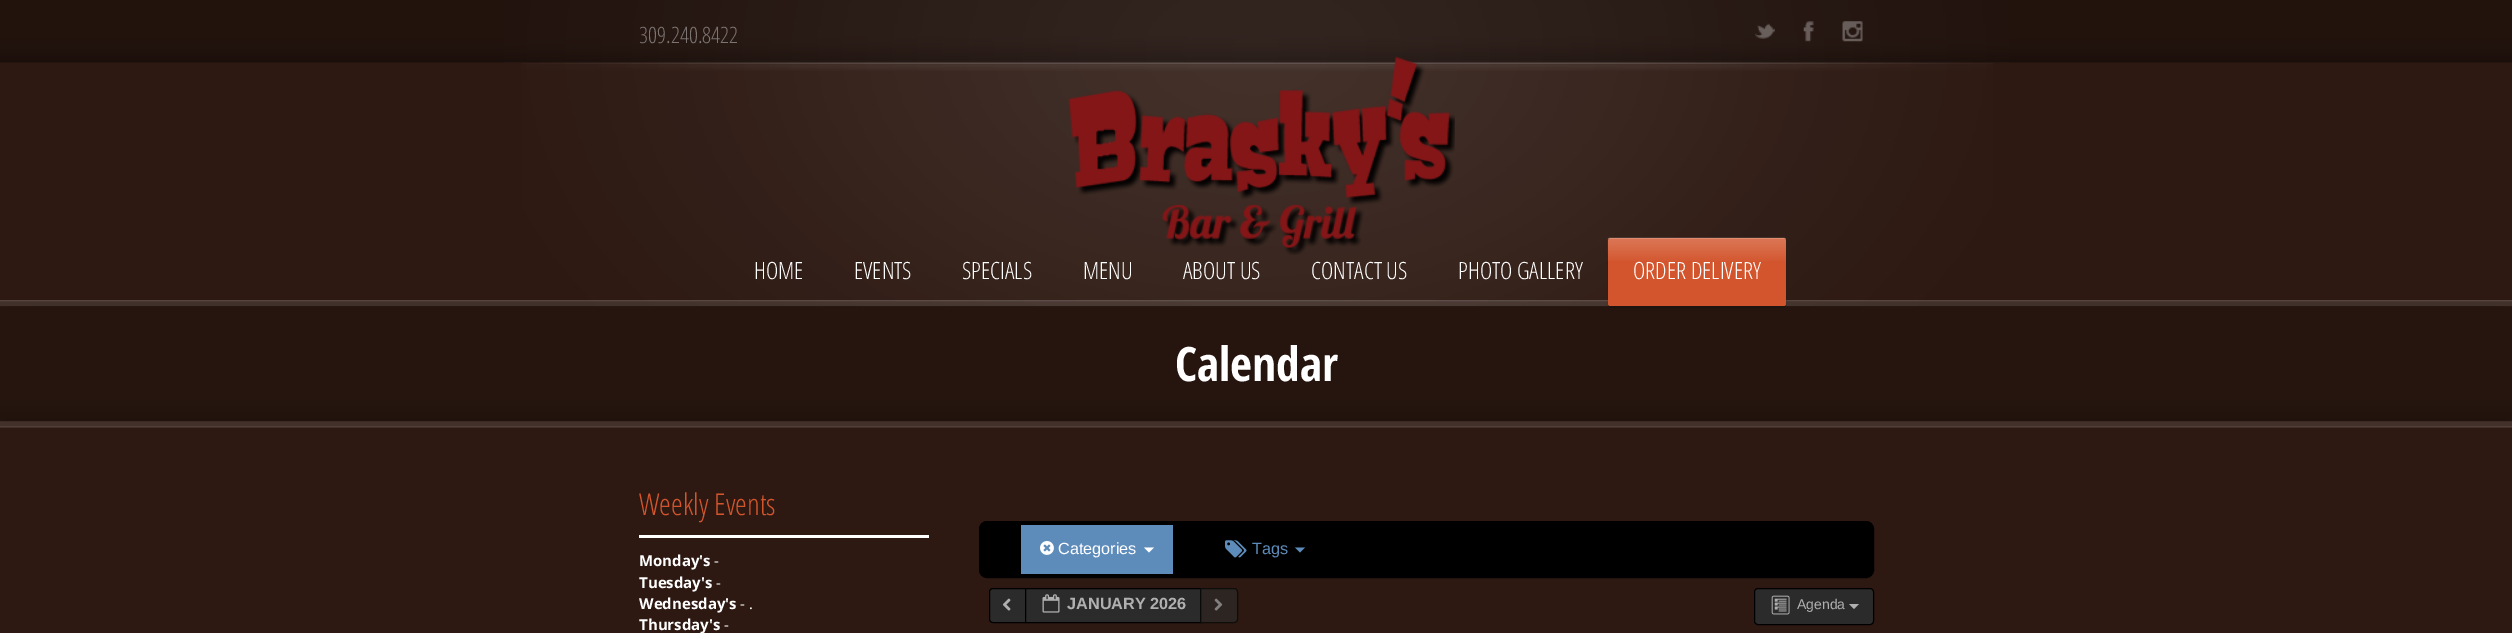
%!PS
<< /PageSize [2512 633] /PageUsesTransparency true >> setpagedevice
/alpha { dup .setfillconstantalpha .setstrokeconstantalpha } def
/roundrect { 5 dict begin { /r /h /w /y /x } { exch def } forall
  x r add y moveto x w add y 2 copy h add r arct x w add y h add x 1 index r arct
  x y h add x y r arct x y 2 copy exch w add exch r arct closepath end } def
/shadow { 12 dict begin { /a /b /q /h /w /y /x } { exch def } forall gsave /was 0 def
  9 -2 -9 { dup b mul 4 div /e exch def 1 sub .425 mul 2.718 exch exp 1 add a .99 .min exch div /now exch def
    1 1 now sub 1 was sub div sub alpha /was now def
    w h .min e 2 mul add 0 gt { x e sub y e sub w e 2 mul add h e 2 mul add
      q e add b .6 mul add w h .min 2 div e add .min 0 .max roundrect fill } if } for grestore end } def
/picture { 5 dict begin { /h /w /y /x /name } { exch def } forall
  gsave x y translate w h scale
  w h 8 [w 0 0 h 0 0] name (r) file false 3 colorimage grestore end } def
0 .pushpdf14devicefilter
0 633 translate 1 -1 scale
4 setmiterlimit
0.176 0.098 0.071 setrgbcolor
0 0 2512 633 rectfill
(img1.rgb) 521 0 1472 306 picture
(img2.rgb) 0 0 2512 63 picture
/OpenSans-Light [22.5 0 0 -22.5 0 0] selectfont
0.486 0.455 0.443 setrgbcolor
639 43 moveto (309.240.8422) show
(img3.rgb) 1755 23 20 16 picture
(img4.rgb) 1803 21 11 21 picture
(img5.rgb) 1842 21 21 21 picture
(img6.rgb) 1068 56 387 199 picture
0.149 0.082 0.059 setrgbcolor
0 306 2512 115 rectfill
(img7.rgb) 0 300 2512 7 picture
/OpenSans-Light [23.75 0 0 -23.75 0 0] selectfont
1 setgray
754 279 moveto (HOME) show
854 279 moveto (EVENTS) show
962 279 moveto (SPECIALS) show
1083 279 moveto (MENU) show
1183 279 moveto (ABOUT US) show
1311 279 moveto (CONTACT US) show
1458 279 moveto (PHOTO GALLERY) show
0 setgray
1608 239 178 69 2.5 0.5 0.2 shadow
0.824 0.333 0.176 setrgbcolor
1608 238 178 68 2.5 roundrect fill
(img8.rgb) 1607 237 179 24 picture
1 setgray
1633 279 moveto (ORDER DELIVERY) show
/OpenSansCondensed-Bold [47.5 0 0 -47.5 0 0] selectfont
1175 381 moveto (Calendar) show
0 setgray
0 415 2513 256 0 12.5 0.25 shadow
0.176 0.098 0.071 setrgbcolor
0 421 2512 212 rectfill
(img9.rgb) 0 421 2512 7 picture
1 setgray
639 535 290 3 rectfill
/OpenSans-Light [30 0 0 -30 0 0] selectfont
0.824 0.333 0.176 setrgbcolor
639 515 moveto (Weekly Events) show
/OpenSans-Bold [15 0 0 -15 0 0] selectfont
1 setgray
639 566 moveto (Monday's) show
/OpenSans-Regular [15 0 0 -15 0 0] selectfont
714 566 moveto (-) show
/OpenSans-Bold [15 0 0 -15 0 0] selectfont
639 588 moveto (Tuesday's) show
/OpenSans-Regular [15 0 0 -15 0 0] selectfont
716 588 moveto (-) show
/OpenSans-Bold [15 0 0 -15 0 0] selectfont
639 609 moveto (Wednesday's) show
/OpenSans-Regular [15 0 0 -15 0 0] selectfont
740 609 moveto (- .) show
/OpenSans-Bold [15 0 0 -15 0 0] selectfont
639 630 moveto (Thursday's) show
/OpenSans-Regular [15 0 0 -15 0 0] selectfont
724 630 moveto (-) show
0 setgray
979.5 521.5 894 56 7.5 roundrect gsave fill grestore
stroke
0.369 0.549 0.729 setrgbcolor
1021 525 152 49 rectfill
(img10.rgb) 1040 541 14 14 picture
/LiberationSans-Regular [16.25 0 0 -16.25 0 0] selectfont
1 setgray
1058 554 moveto (Categories) show
newpath 1144 547.5 moveto 1154 547.5 lineto 1149 552.5 lineto closepath fill
(img11.rgb) 1225 540 22 18 picture
0.369 0.549 0.729 setrgbcolor
1252 554 moveto (Tags) show
newpath 1295 547.5 moveto 1305 547.5 lineto 1300 552.5 lineto closepath fill
0.169 setgray
newpath 993 588.5 moveto 1025.5 588.5 lineto 1025.5 622.5 lineto 993 622.5 lineto 991 622.5 989.5 621 989.5 619 curveto 989.5 592 lineto 989.5 590 991 588.5 993 588.5 curveto closepath gsave fill grestore
0 setgray
stroke
(img12.rgb) 1002 598 9 13 picture
0.169 setgray
newpath 1025.5 588.5 moveto 1200.5 588.5 lineto 1200.5 622.5 lineto 1025.5 622.5 lineto closepath gsave fill grestore
0 setgray
stroke
(img13.rgb) 1042 594 18 19 picture
/LiberationSans-Bold [16.25 0 0 -16.25 0 0] selectfont
0.69 setgray
1067 609 moveto (JANUARY 2026) show
0.65 alpha
0.169 setgray
newpath 1200 588 moveto 1234 588 lineto 1236 588 1238 590 1238 592 curveto 1238 619 lineto 1238 621 1236 623 1234 623 curveto 1200 623 lineto closepath fill
0 setgray
newpath 1200.5 588.5 moveto 1234 588.5 lineto 1236 588.5 1237.5 590 1237.5 592 curveto 1237.5 619 lineto 1237.5 621 1236 622.5 1234 622.5 curveto 1200.5 622.5 lineto closepath stroke
1 alpha
(img14.rgb) 1214 598 9 13 picture
0.169 setgray
1754.5 588.5 119 36 3.5 roundrect gsave fill grestore
0 setgray
stroke
(img15.rgb) 1771 595 19 20 picture
/LiberationSans-Regular [14 0 0 -14 0 0] selectfont
0.69 setgray
1797 609 moveto (Agenda) show
newpath 1849 604 moveto 1859 604 lineto 1854 609 lineto closepath fill
.poppdf14devicefilter showpage
